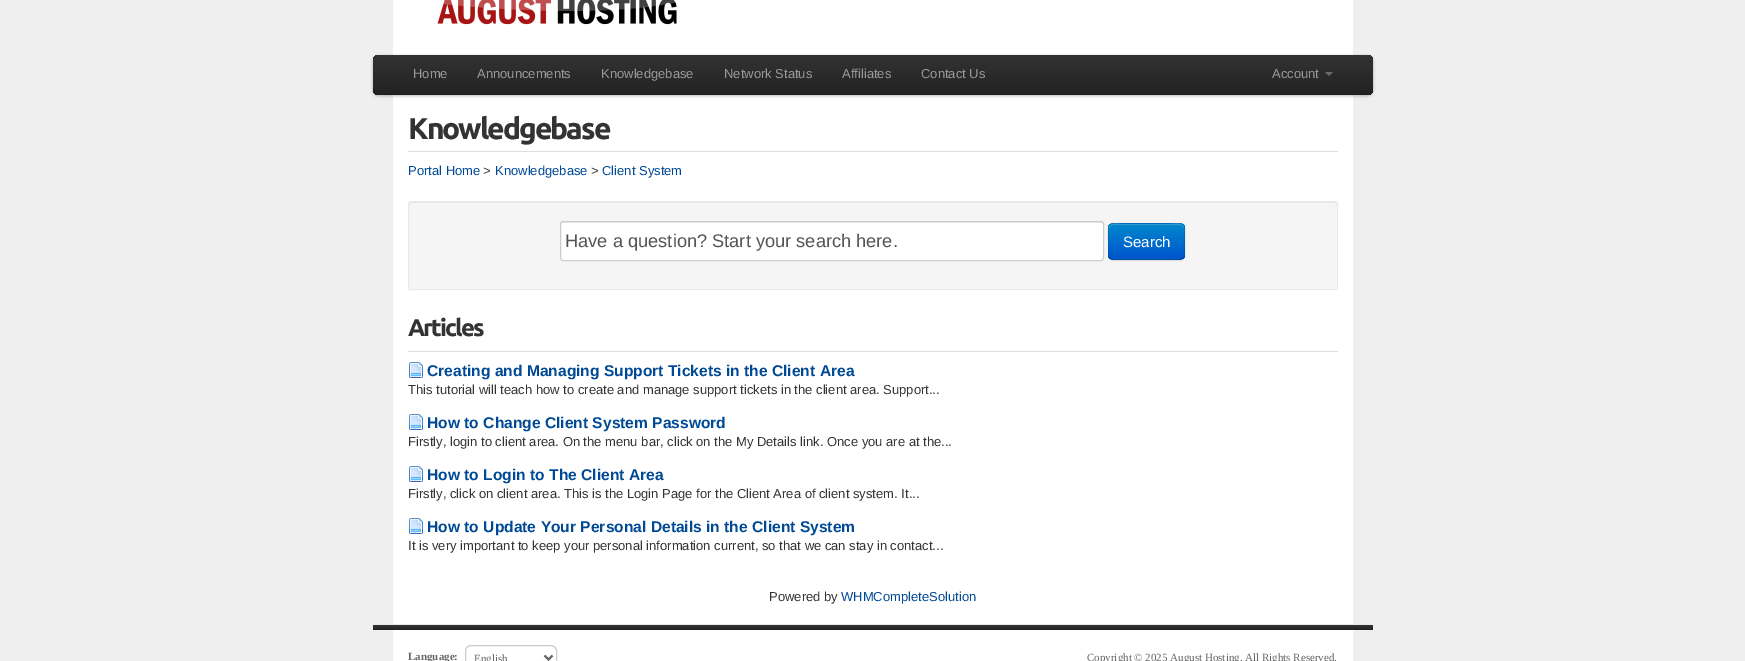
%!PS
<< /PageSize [1745 661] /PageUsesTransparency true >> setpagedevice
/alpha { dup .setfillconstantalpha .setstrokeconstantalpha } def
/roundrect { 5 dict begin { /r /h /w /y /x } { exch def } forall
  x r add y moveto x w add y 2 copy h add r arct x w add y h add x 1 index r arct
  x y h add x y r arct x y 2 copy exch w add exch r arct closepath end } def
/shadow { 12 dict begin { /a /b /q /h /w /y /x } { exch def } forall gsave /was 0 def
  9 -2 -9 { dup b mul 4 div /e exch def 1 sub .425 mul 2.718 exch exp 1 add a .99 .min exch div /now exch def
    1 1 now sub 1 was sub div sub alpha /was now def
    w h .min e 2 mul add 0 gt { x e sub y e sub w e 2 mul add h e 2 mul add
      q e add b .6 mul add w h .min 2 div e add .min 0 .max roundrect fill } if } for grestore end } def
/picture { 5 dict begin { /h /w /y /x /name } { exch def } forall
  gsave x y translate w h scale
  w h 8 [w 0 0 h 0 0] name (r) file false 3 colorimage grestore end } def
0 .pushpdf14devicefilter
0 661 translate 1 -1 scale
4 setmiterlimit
0.937 setgray
0 0 1745 661 rectfill
1 setgray
393 0 960 55 rectfill
(img1.rgb) 437 0 240 25 picture
393 95 960 529 rectfill
0 setgray
373 56 1000 40 6 1.5 0.25 shadow
gsave 373 55 1000 40 6 roundrect clip newpath
<< /ShadingType 2 /ColorSpace /DeviceRGB /Coords [873 55 873 95] /Extend [true true] /Function << /FunctionType 2 /Domain [0 1] /C0 [0.2 0.2 0.2] /C1 [0.133 0.133 0.133] /N 1 >> >> shfill grestore
0.1 alpha
newpath 373 88 moveto 373 89 lineto 373 92 376 95 379 95 curveto 1367 95 lineto 1370 95 1373 92 1373 89 curveto 1373 88 lineto 1373 91 1370 94 1367 94 curveto 379 94 lineto 376 94 373 91 373 88 curveto closepath fill
/LiberationSans-Regular [13 0 0 -13 0 0] selectfont
1 alpha
0.6 setgray
413 78 moveto (Home) show
477 78 moveto (Announcements) show
601 78 moveto (Knowledgebase) show
724 78 moveto (Network Status) show
842 78 moveto (Affiliates) show
921 78 moveto (Contact Us) show
1272 78 moveto (Account) show
0.42 setgray
newpath 1325 72 moveto 1333 72 lineto 1329 76 lineto closepath fill
0.867 setgray
408 151 930 1 rectfill
/Ubuntu-Bold [30 0 0 -30 0 0] selectfont
0.2 setgray
408 139 moveto -2 0 (Knowledgebase) ashow
/LiberationSans-Regular [13 0 0 -13 0 0] selectfont
0 0.29 0.584 setrgbcolor
408 175 moveto (Portal Home) show
0.2 setgray
483 175 moveto (>) show
0 0.29 0.584 setrgbcolor
495 175 moveto (Knowledgebase) show
0.2 setgray
591 175 moveto (>) show
0 0.29 0.584 setrgbcolor
602 175 moveto (Client System) show
0.961 setgray
408 201 930 89 4 roundrect fill
0.914 setgray
newpath 412 203 moveto 1334 203 lineto 1336 203 1337 204 1337 206 curveto 1337 204 1336 202 1334 202 curveto 412 202 lineto 410 202 409 204 409 206 curveto 409 204 410 203 412 203 curveto closepath fill
0.05 alpha
0 setgray
408.5 201.5 929 88 rectstroke
1 alpha
1 setgray
560 221 544 40 3 roundrect fill
0.925 setgray
newpath 563 223 moveto 1101 223 lineto 1102 223 1103 224 1103 225 curveto 1103 224 1103 222 1101 222 curveto 563 222 lineto 561 223 lineto 561 225 lineto 561 224 562 223 563 223 curveto closepath fill
0.8 setgray
560.5 221.5 543 39 2.5 roundrect stroke
/LiberationSans-Regular [18.25 0 0 -18.25 0 0] selectfont
0.333 setgray
565 247 moveto (Have a question? Start your search here.) show
0 setgray
1108 224 77 37 5 1 0.05 shadow
0 0.455 0.8 setrgbcolor
1108 223 77 37 5 roundrect fill
gsave
1108 223 77 37 5 roundrect clip newpath
gsave newpath 1108 224 moveto 1185 224 lineto 1185 259 lineto 1108 259 lineto closepath clip newpath
<< /ShadingType 2 /ColorSpace /DeviceRGB /Coords [1147 224 1147 259] /Extend [true true] /Function << /FunctionType 2 /Domain [0 1] /C0 [0 0.533 0.8] /C1 [0 0.333 0.8] /N 1 >> >> shfill grestore
grestore
0.2 alpha
1 setgray
newpath 1113 225 moveto 1180 225 lineto 1182 225 1184 227 1184 229 curveto 1184 221 1174 224 1169 224 curveto 1124 224 lineto 1119 224 1109 221 1109 229 curveto 1109 227 1111 225 1113 225 curveto closepath fill
0.25 alpha
0 setgray
newpath 1183 258 moveto 1180.5 259.5 lineto 1112.5 259.5 lineto 1110 258 lineto stroke
0.1 alpha
newpath 1110 258 moveto 1108 256 1108.5 253 1108.5 250.5 curveto 1108.5 241.5 lineto 1108.5 222.5 1105.5 223.5 1124 223.5 curveto 1169 223.5 lineto 1187.5 223.5 1184.5 222.5 1184.5 241.5 curveto 1184.5 250.5 lineto 1184.5 253 1185 256 1183 258 curveto stroke
/LiberationSans-Regular [15 0 0 -15 0 0] selectfont
1 alpha
1 setgray
1123 247 moveto (Search) show
0.867 setgray
408 351 930 1 rectfill
/Ubuntu-Bold [24 0 0 -24 0 0] selectfont
0.2 setgray
408 336 moveto -2 0 (Articles) ashow
(img2.rgb) 409 362 14 16 picture
/LiberationSans-Bold [15.6 0 0 -15.6 0 0] selectfont
0 0.29 0.584 setrgbcolor
427 376 moveto (Creating and Managing Support Tickets in the Client Area) show
/LiberationSans-Regular [13 0 0 -13 0 0] selectfont
0.2 setgray
408 394 moveto (This tutorial will teach how to create and manage support tickets in the client area. Support...) show
(img2.rgb) 409 414 14 16 picture
/LiberationSans-Bold [15.6 0 0 -15.6 0 0] selectfont
0 0.29 0.584 setrgbcolor
427 428 moveto (How to Change Client System Password) show
/LiberationSans-Regular [13 0 0 -13 0 0] selectfont
0.2 setgray
408 446 moveto (Firstly, login to client area. On the menu bar, click on the My Details link. Once you are at the...) show
(img2.rgb) 409 466 14 16 picture
/LiberationSans-Bold [15.6 0 0 -15.6 0 0] selectfont
0 0.29 0.584 setrgbcolor
427 480 moveto (How to Login to The Client Area) show
/LiberationSans-Regular [13 0 0 -13 0 0] selectfont
0.2 setgray
408 498 moveto (Firstly, click on client area. This is the Login Page for the Client Area of client system. It...) show
(img2.rgb) 409 518 14 16 picture
/LiberationSans-Bold [15.6 0 0 -15.6 0 0] selectfont
0 0.29 0.584 setrgbcolor
427 532 moveto (How to Update Your Personal Details in the Client System) show
/LiberationSans-Regular [13 0 0 -13 0 0] selectfont
0.2 setgray
408 550 moveto (It is very important to keep your personal information current, so that we can stay in contact...) show
769 601 moveto (Powered by) show
0 0.29 0.584 setrgbcolor
841 601 moveto (WHMCompleteSolution) show
gsave
373 624 1000 6 2 roundrect clip newpath
gsave newpath 373 625 moveto 1373 625 lineto 1373 628 lineto 1373 629 1372 630 1371 630 curveto 375 630 lineto 374 630 373 629 373 628 curveto closepath clip newpath
<< /ShadingType 2 /ColorSpace /DeviceRGB /Coords [873 625 873 630] /Extend [true true] /Function << /FunctionType 2 /Domain [0 1] /C0 [0.2 0.2 0.2] /C1 [0.133 0.133 0.133] /N 1 >> >> shfill grestore
grestore
0.91 setgray
374 624 998 1 rectfill
1 setgray
393 630 960 31 rectfill
/LiberationSerif-Bold [11 0 0 -11 0 0] selectfont
0.4 setgray
408 660 moveto (Language:) show
0.8 setgray
465.5 645.5 91 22 5.5 roundrect stroke
0.4 setgray
2 setlinewidth
newpath 544.5 655.5 moveto 548.5 659.5 lineto 552.5 655.5 lineto stroke
/LiberationSerif-Regular [11 0 0 -11 0 0] selectfont
474 662 moveto (English) show
1087 661 moveto (Copyright © 2025 August Hosting. All Rights Reserved.) show
.poppdf14devicefilter showpage
